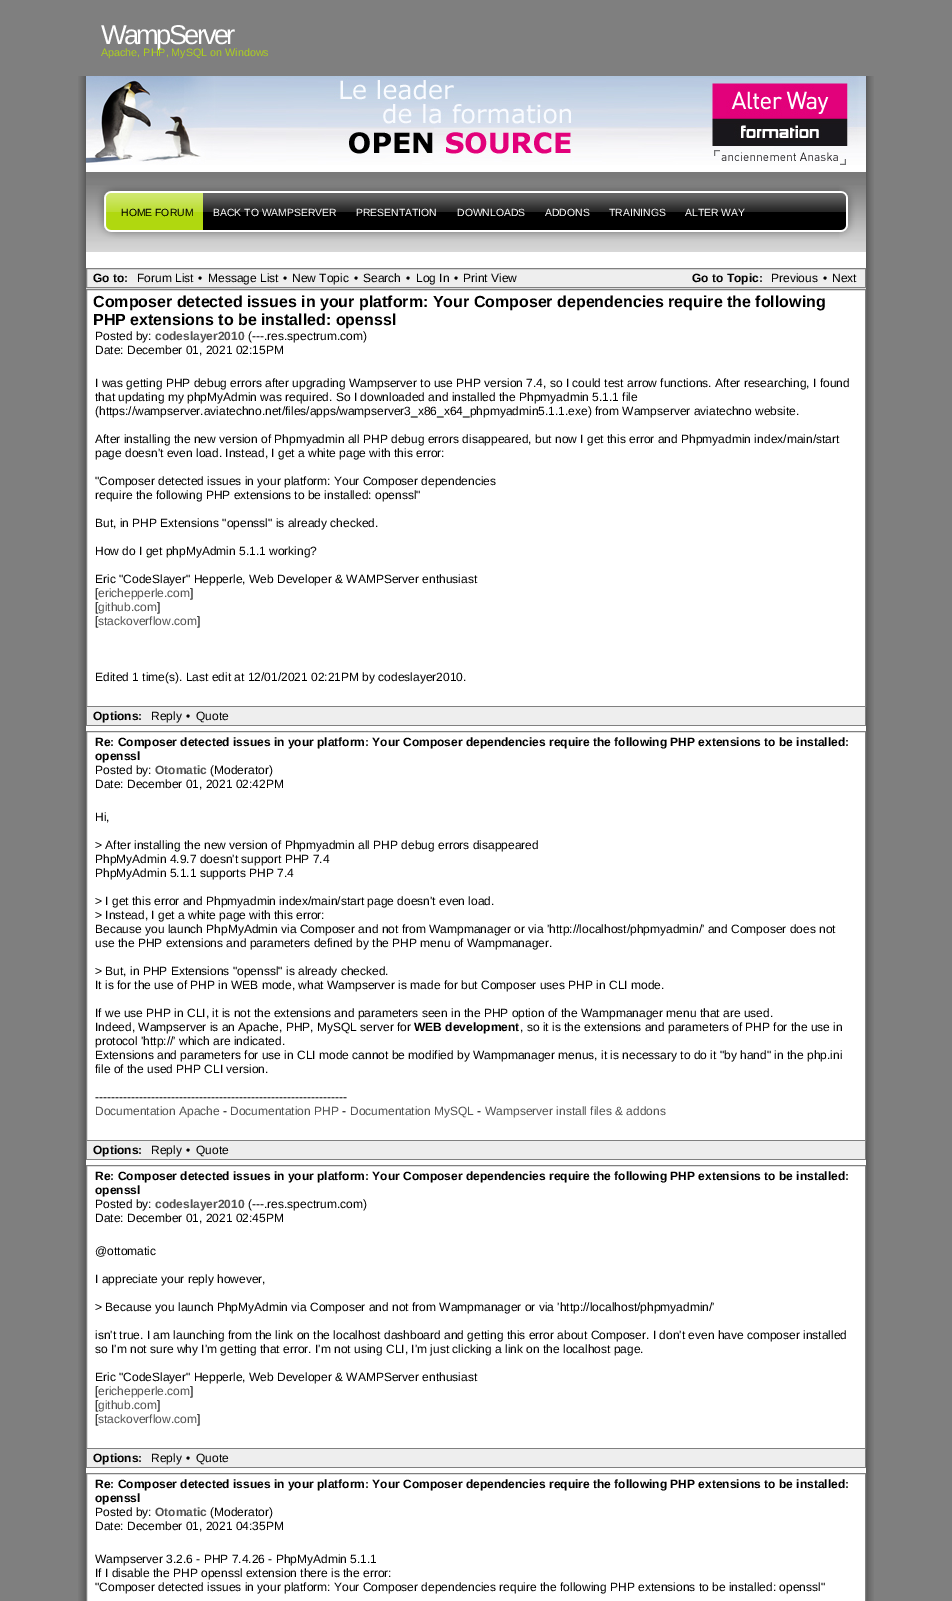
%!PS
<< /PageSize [952 1601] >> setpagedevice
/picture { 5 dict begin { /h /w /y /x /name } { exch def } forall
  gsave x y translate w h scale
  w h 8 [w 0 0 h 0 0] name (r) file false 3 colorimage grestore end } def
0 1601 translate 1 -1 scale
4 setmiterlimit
0.498 setgray
0 0 952 1601 rectfill
(img1.rgb) 78 76 796 1525 picture
/LiberationSans-Regular [27.25 0 0 -27.25 0 0] selectfont
1 setgray
101 44 moveto -2.75 0 (WampServer) ashow
/LiberationSans-Regular [10.75 0 0 -10.75 0 0] selectfont
0.678 0.812 0.125 setrgbcolor
101 56 moveto (Apache, PHP, MySQL on Windows) show
(img2.rgb) 86 76 780 89 picture
(img3.rgb) 86 172 780 80 picture
(img4.rgb) 86 185 117 54 picture
/LiberationSans-Regular [10.4 0 0 -10.4 0 0] selectfont
0 setgray
121 216 moveto (HOME FORUM) show
1 setgray
213 216 moveto (BACK TO WAMPSERVER) show
356 216 moveto (PRESENTATION) show
457 216 moveto (DOWNLOADS) show
545 216 moveto (ADDONS) show
609 216 moveto (TRAININGS) show
685 216 moveto (ALTER WAY) show
(img5.rgb) 839 185 27 54 picture
0.933 setgray
newpath 86.5 268.5 moveto 865.5 268.5 lineto 865.5 287.5 lineto 86.5 287.5 lineto closepath gsave fill grestore
0.502 setgray
stroke
/LiberationSans-Bold [12 0 0 -12 0 0] selectfont
0 setgray
93 282 moveto (Go to:) show
/LiberationSans-Regular [12 0 0 -12 0 0] selectfont
137 282 moveto (Forum List) show
198 282 moveto (•) show
208 282 moveto (Message List) show
283 282 moveto (•) show
292 282 moveto (New Topic) show
354 282 moveto (•) show
363 282 moveto (Search) show
406 282 moveto (•) show
416 282 moveto (Log In) show
454 282 moveto (•) show
463 282 moveto (Print View) show
/LiberationSans-Bold [12 0 0 -12 0 0] selectfont
692 282 moveto (Go to Topic:) show
/LiberationSans-Regular [12 0 0 -12 0 0] selectfont
771 282 moveto (Previous) show
823 282 moveto (•) show
832 282 moveto (Next) show
0.502 setgray
86.5 289.5 779 417 rectstroke
/LiberationSans-Bold [16 0 0 -16 0 0] selectfont
0 setgray
93 307 moveto (Composer detected issues in your platform: Your Composer dependencies require the following) show
93 325 moveto (PHP extensions to be installed: openssl) show
/LiberationSans-Regular [12 0 0 -12 0 0] selectfont
95 340 moveto (Posted by:) show
/LiberationSans-Bold [12 0 0 -12 0 0] selectfont
0.318 setgray
155 340 moveto (codeslayer2010) show
/LiberationSans-Regular [12 0 0 -12 0 0] selectfont
0 setgray
248 340 moveto (\(---.res.spectrum.com\)) show
95 354 moveto (Date: December 01, 2021 02:15PM) show
95 387 moveto (I was getting PHP debug errors after upgrading Wampserver to use PHP version 7.4, so I could test arrow functions. After researching, I found) show
95 401 moveto (that updating my phpMyAdmin was required. So I downloaded and installed the Phpmyadmin 5.1.1 file) show
95 415 moveto (\(https://wampserver.aviatechno.net/files/apps/wampserver3_x86_x64_phpmyadmin5.1.1.exe\) from Wampserver aviatechno website.) show
95 443 moveto (After installing the new version of Phpmyadmin all PHP debug errors disappeared, but now I get this error and Phpmyadmin index/main/start) show
95 457 moveto (page doesn't even load. Instead, I get a white page with this error:) show
95 485 moveto ("Composer detected issues in your platform: Your Composer dependencies) show
95 499 moveto (require the following PHP extensions to be installed: openssl") show
95 527 moveto (But, in PHP Extensions "openssl" is already checked.) show
95 555 moveto (How do I get phpMyAdmin 5.1.1 working?) show
95 583 moveto (Eric "CodeSlayer" Hepperle, Web Developer & WAMPServer enthusiast) show
95 597 moveto ([) show
0.318 setgray
98 597 moveto (erichepperle.com) show
0 setgray
190 597 moveto (]) show
95 611 moveto ([) show
0.318 setgray
98 611 moveto (github.com) show
0 setgray
157 611 moveto (]) show
95 625 moveto ([) show
0.318 setgray
98 625 moveto (stackoverflow.com) show
0 setgray
197 625 moveto (]) show
95 681 moveto (Edited 1 time\(s\). Last edit at 12/01/2021 02:21PM by codeslayer2010.) show
0.933 setgray
87 707 778 18 rectfill
0.502 setgray
865 707 1 19 rectfill
86 725 780 1 rectfill
86 707 1 19 rectfill
/LiberationSans-Bold [12 0 0 -12 0 0] selectfont
0 setgray
93 720 moveto (Options:) show
/LiberationSans-Regular [12 0 0 -12 0 0] selectfont
151 720 moveto (Reply) show
186 720 moveto (•) show
196 720 moveto (Quote) show
0.502 setgray
86.5 731.5 779 409 rectstroke
/LiberationSans-Bold [12 0 0 -12 0 0] selectfont
0 setgray
95 746 moveto (Re: Composer detected issues in your platform: Your Composer dependencies require the following PHP extensions to be installed:) show
95 760 moveto (openssl) show
/LiberationSans-Regular [12 0 0 -12 0 0] selectfont
95 774 moveto (Posted by:) show
/LiberationSans-Bold [12 0 0 -12 0 0] selectfont
0.318 setgray
155 774 moveto (Otomatic) show
/LiberationSans-Regular [12 0 0 -12 0 0] selectfont
0 setgray
210 774 moveto (\(Moderator\)) show
95 788 moveto (Date: December 01, 2021 02:42PM) show
95 821 moveto (Hi,) show
95 849 moveto (> After installing the new version of Phpmyadmin all PHP debug errors disappeared) show
95 863 moveto (PhpMyAdmin 4.9.7 doesn't support PHP 7.4) show
95 877 moveto (PhpMyAdmin 5.1.1 supports PHP 7.4) show
95 905 moveto (> I get this error and Phpmyadmin index/main/start page doesn't even load.) show
95 919 moveto (> Instead, I get a white page with this error:) show
95 933 moveto (Because you launch PhpMyAdmin via Composer and not from Wampmanager or via 'http://localhost/phpmyadmin/' and Composer does not) show
95 947 moveto (use the PHP extensions and parameters defined by the PHP menu of Wampmanager.) show
95 975 moveto (> But, in PHP Extensions "openssl" is already checked.) show
95 989 moveto (It is for the use of PHP in WEB mode, what Wampserver is made for but Composer uses PHP in CLI mode.) show
95 1017 moveto (If we use PHP in CLI, it is not the extensions and parameters seen in the PHP option of the Wampmanager menu that are used.) show
95 1031 moveto (Indeed, Wampserver is an Apache, PHP, MySQL server for) show
/LiberationSans-Bold [12 0 0 -12 0 0] selectfont
414 1031 moveto (WEB development) show
/LiberationSans-Regular [12 0 0 -12 0 0] selectfont
520 1031 moveto (, so it is the extensions and parameters of PHP for the use in) show
95 1045 moveto (protocol 'http://' which are indicated.) show
95 1059 moveto (Extensions and parameters for use in CLI mode cannot be modified by Wampmanager menus, it is necessary to do it "by hand" in the php.ini) show
95 1073 moveto (file of the used PHP CLI version.) show
95 1101 moveto (---------------------------------------------------------------) show
0.318 setgray
95 1115 moveto (Documentation Apache) show
0 setgray
223 1115 moveto (-) show
0.318 setgray
230 1115 moveto (Documentation PHP) show
0 setgray
342 1115 moveto (-) show
0.318 setgray
350 1115 moveto (Documentation MySQL) show
0 setgray
477 1115 moveto (-) show
0.318 setgray
485 1115 moveto (Wampserver install files & addons) show
0.933 setgray
87 1141 778 18 rectfill
0.502 setgray
865 1141 1 19 rectfill
86 1159 780 1 rectfill
86 1141 1 19 rectfill
/LiberationSans-Bold [12 0 0 -12 0 0] selectfont
0 setgray
93 1154 moveto (Options:) show
/LiberationSans-Regular [12 0 0 -12 0 0] selectfont
151 1154 moveto (Reply) show
186 1154 moveto (•) show
196 1154 moveto (Quote) show
0.502 setgray
86.5 1165.5 779 283 rectstroke
/LiberationSans-Bold [12 0 0 -12 0 0] selectfont
0 setgray
95 1180 moveto (Re: Composer detected issues in your platform: Your Composer dependencies require the following PHP extensions to be installed:) show
95 1194 moveto (openssl) show
/LiberationSans-Regular [12 0 0 -12 0 0] selectfont
95 1208 moveto (Posted by:) show
/LiberationSans-Bold [12 0 0 -12 0 0] selectfont
0.318 setgray
155 1208 moveto (codeslayer2010) show
/LiberationSans-Regular [12 0 0 -12 0 0] selectfont
0 setgray
248 1208 moveto (\(---.res.spectrum.com\)) show
95 1222 moveto (Date: December 01, 2021 02:45PM) show
95 1255 moveto (@ottomatic) show
95 1283 moveto (I appreciate your reply however,) show
95 1311 moveto (> Because you launch PhpMyAdmin via Composer and not from Wampmanager or via 'http://localhost/phpmyadmin/') show
95 1339 moveto (isn't true. I am launching from the link on the localhost dashboard and getting this error about Composer. I don't even have composer installed) show
95 1353 moveto (so I'm not sure why I'm getting that error. I'm not using CLI, I'm just clicking a link on the localhost page.) show
95 1381 moveto (Eric "CodeSlayer" Hepperle, Web Developer & WAMPServer enthusiast) show
95 1395 moveto ([) show
0.318 setgray
98 1395 moveto (erichepperle.com) show
0 setgray
190 1395 moveto (]) show
95 1409 moveto ([) show
0.318 setgray
98 1409 moveto (github.com) show
0 setgray
157 1409 moveto (]) show
95 1423 moveto ([) show
0.318 setgray
98 1423 moveto (stackoverflow.com) show
0 setgray
197 1423 moveto (]) show
0.933 setgray
87 1449 778 18 rectfill
0.502 setgray
865 1449 1 19 rectfill
86 1467 780 1 rectfill
86 1449 1 19 rectfill
/LiberationSans-Bold [12 0 0 -12 0 0] selectfont
0 setgray
93 1462 moveto (Options:) show
/LiberationSans-Regular [12 0 0 -12 0 0] selectfont
151 1462 moveto (Reply) show
186 1462 moveto (•) show
196 1462 moveto (Quote) show
0.502 setgray
86.5 1473.5 779 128 rectstroke
/LiberationSans-Bold [12 0 0 -12 0 0] selectfont
0 setgray
95 1488 moveto (Re: Composer detected issues in your platform: Your Composer dependencies require the following PHP extensions to be installed:) show
95 1502 moveto (openssl) show
/LiberationSans-Regular [12 0 0 -12 0 0] selectfont
95 1516 moveto (Posted by:) show
/LiberationSans-Bold [12 0 0 -12 0 0] selectfont
0.318 setgray
155 1516 moveto (Otomatic) show
/LiberationSans-Regular [12 0 0 -12 0 0] selectfont
0 setgray
210 1516 moveto (\(Moderator\)) show
95 1530 moveto (Date: December 01, 2021 04:35PM) show
95 1563 moveto (Wampserver 3.2.6 - PHP 7.4.26 - PhpMyAdmin 5.1.1) show
95 1577 moveto (If I disable the PHP openssl extension there is the error:) show
95 1591 moveto ("Composer detected issues in your platform: Your Composer dependencies require the following PHP extensions to be installed: openssl") show
showpage
